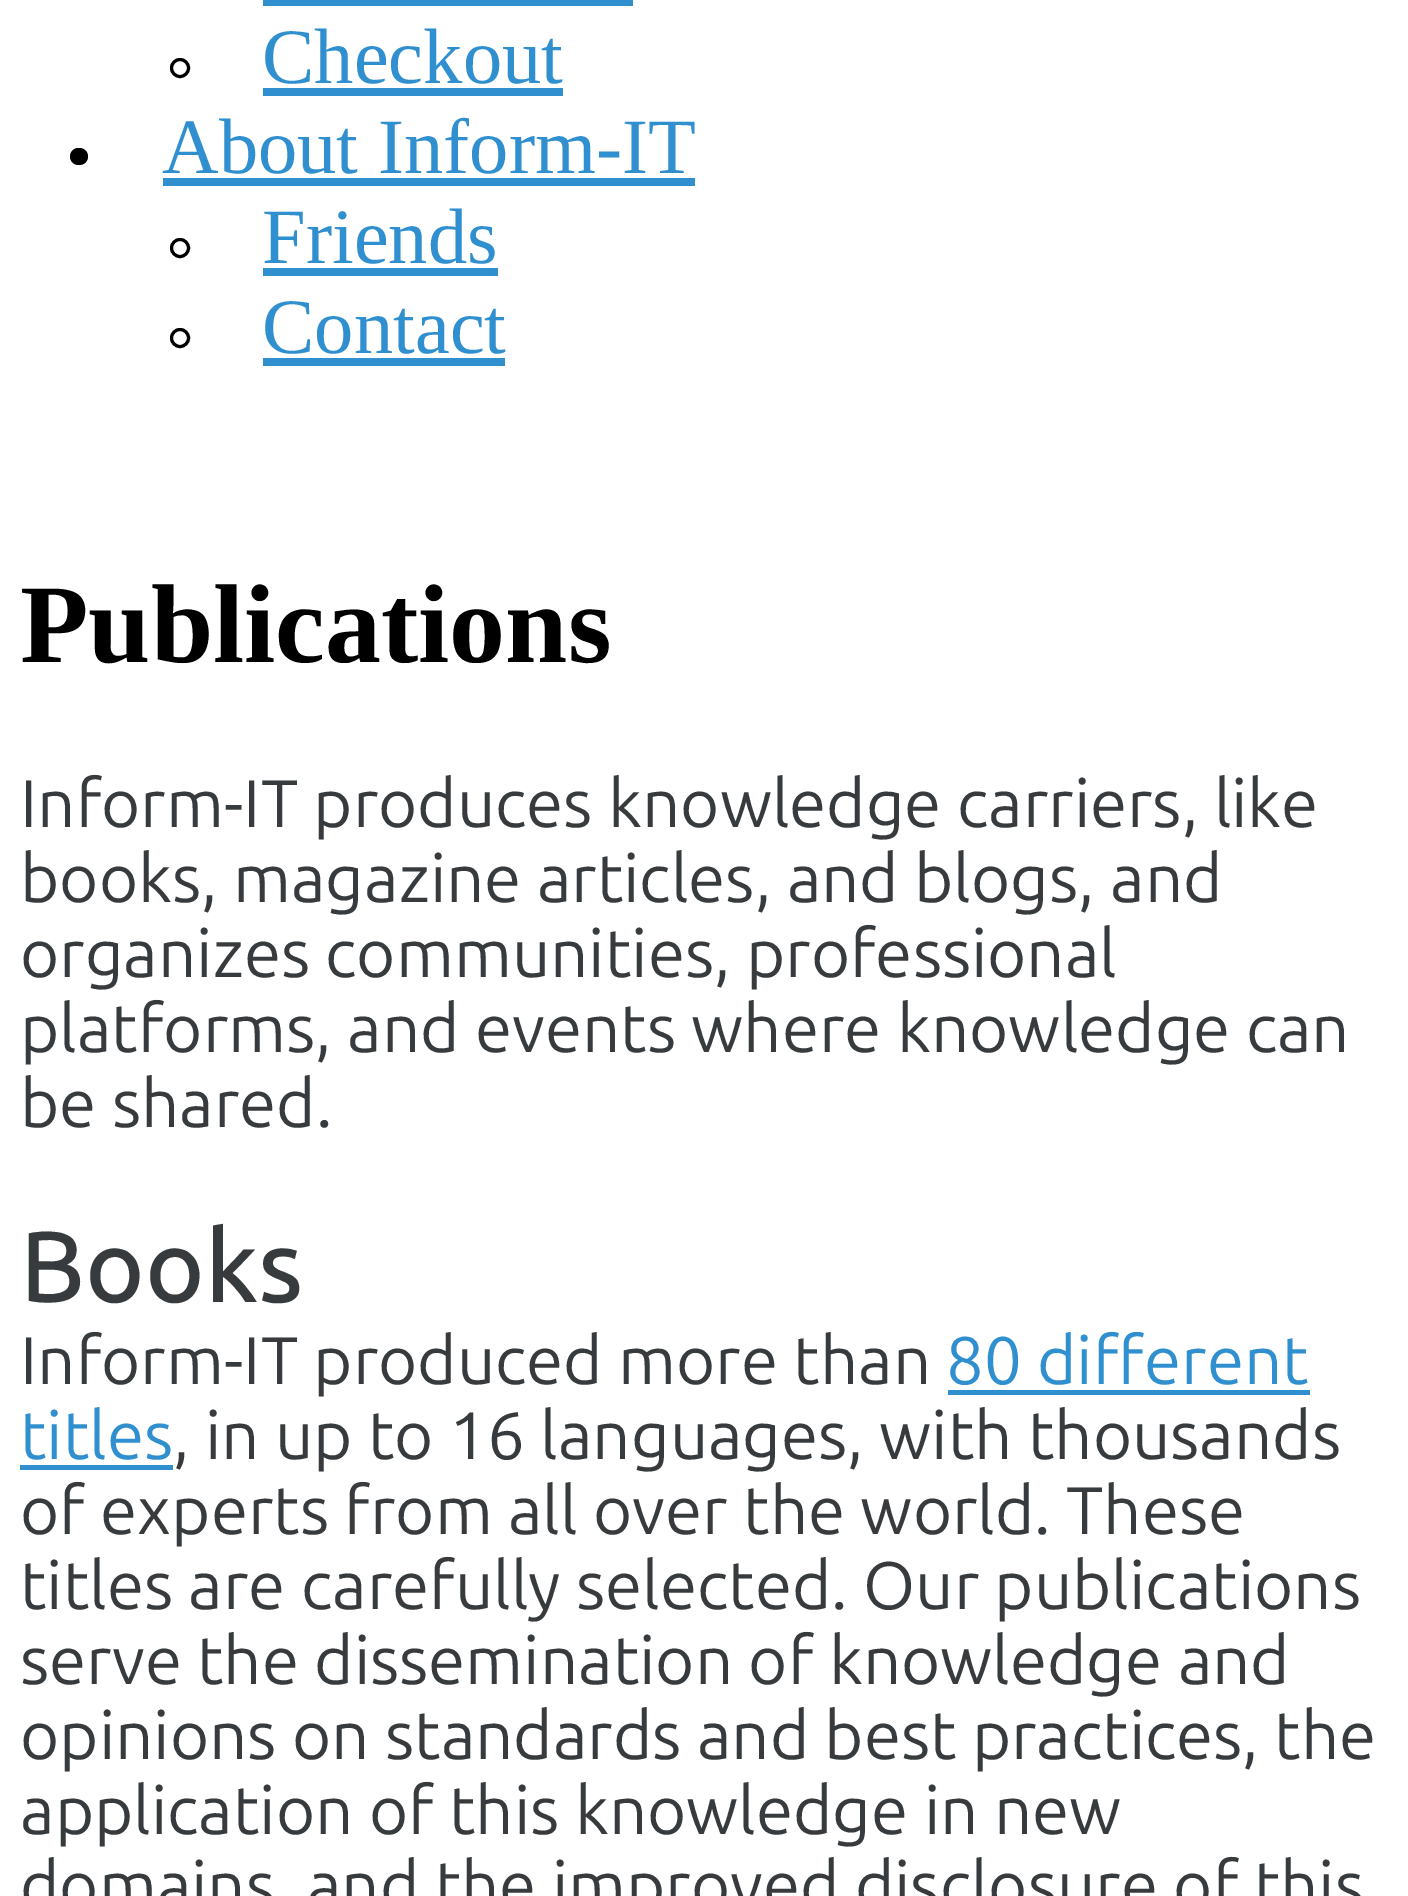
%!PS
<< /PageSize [1408 1896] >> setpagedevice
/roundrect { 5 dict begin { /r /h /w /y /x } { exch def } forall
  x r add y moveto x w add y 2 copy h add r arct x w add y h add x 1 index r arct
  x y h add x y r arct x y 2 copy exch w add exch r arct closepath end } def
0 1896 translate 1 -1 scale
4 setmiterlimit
1 setgray
0 0 1408 1896 rectfill
0.188 0.561 0.808 setrgbcolor
263 0 370 6 rectfill
0 setgray
3 setlinewidth
newpath 180 68 8.5 0 360 arc closepath stroke
/LiberationSerif-Regular [78.5 0 0 -78.5 0 0] selectfont
0.188 0.561 0.808 setrgbcolor
262 83 moveto (Checkout) show
263 88 300 8 rectfill
0 setgray
70 148 18 17 8.5 roundrect fill
0.188 0.561 0.808 setrgbcolor
162 173 moveto (About Inform-IT) show
163 178 532 8 rectfill
0 setgray
newpath 180 248 8.5 0 360 arc closepath stroke
0.188 0.561 0.808 setrgbcolor
262 263 moveto (Friends) show
263 268 235 8 rectfill
0 setgray
newpath 180 338 8.5 0 360 arc closepath stroke
0.188 0.561 0.808 setrgbcolor
262 353 moveto (Contact) show
263 358 242 8 rectfill
/LiberationSerif-Bold [112 0 0 -112 0 0] selectfont
0 setgray
20 662 moveto (Publications) show
/Ubuntu-Regular [67.2 0 0 -67.2 0 0] selectfont
0.216 0.231 0.239 setrgbcolor
20 827 moveto (Inform-IT produces knowledge carriers, like) show
20 902 moveto (books, magazine articles, and blogs, and) show
20 977 moveto (organizes communities, professional) show
20 1052 moveto (platforms, and events where knowledge can) show
20 1127 moveto (be shared.) show
/Ubuntu-Medium [101 0 0 -101 0 0] selectfont
20 1302 moveto (Books) show
/Ubuntu-Regular [67.2 0 0 -67.2 0 0] selectfont
20 1384 moveto (Inform-IT produced more than) show
0.188 0.561 0.808 setrgbcolor
946 1384 moveto (80 different) show
948 1390 362 5 rectfill
20 1459 moveto (titles) show
20 1465 153 5 rectfill
0.216 0.231 0.239 setrgbcolor
173 1459 moveto (, in up to 16 languages, with thousands) show
20 1534 moveto (of experts from all over the world. These) show
20 1609 moveto (titles are carefully selected. Our publications) show
20 1684 moveto (serve the dissemination of knowledge and) show
20 1759 moveto (opinions on standards and best practices, the) show
20 1834 moveto (application of this knowledge in new) show
20 1909 moveto (domains, and the improved disclosure of this) show
showpage
